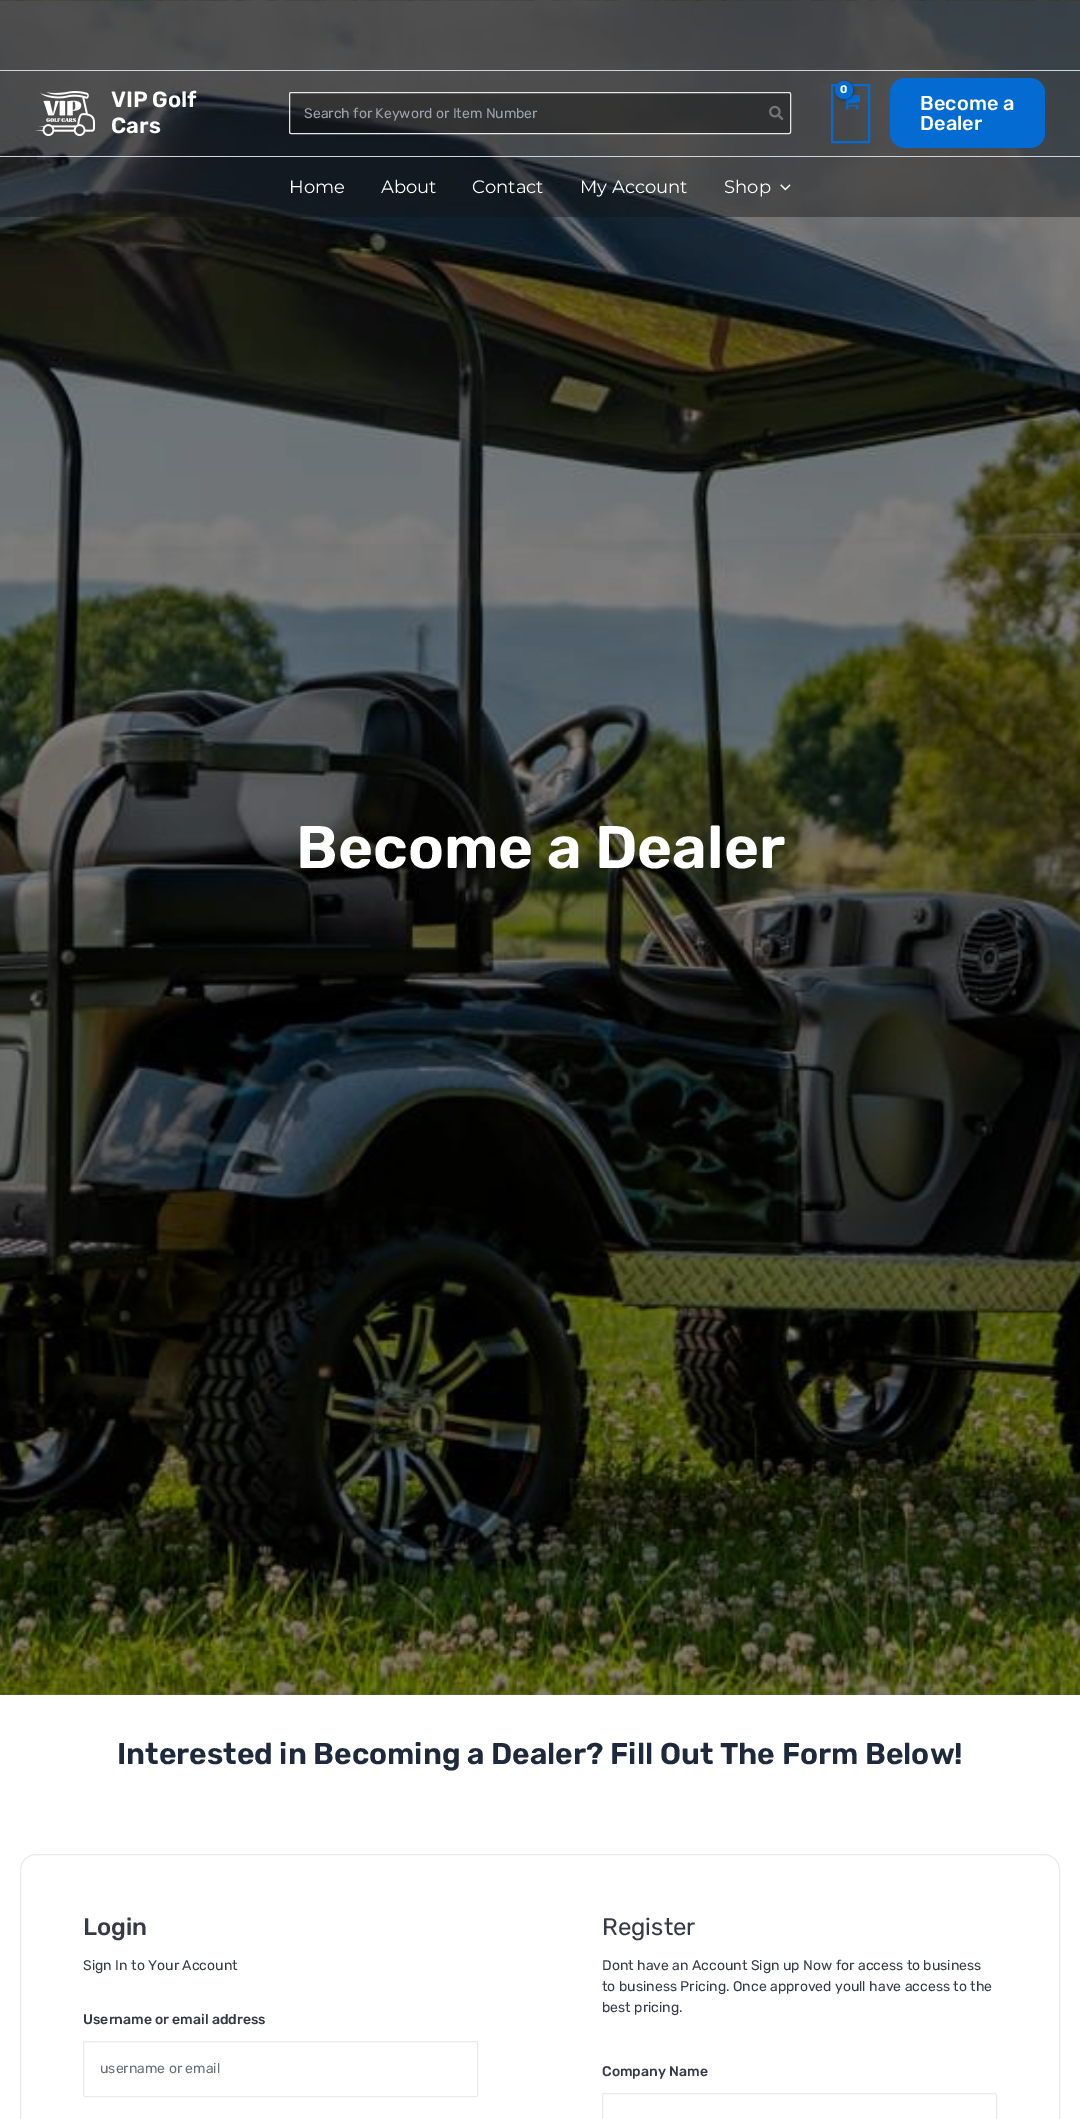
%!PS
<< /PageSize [1080 2119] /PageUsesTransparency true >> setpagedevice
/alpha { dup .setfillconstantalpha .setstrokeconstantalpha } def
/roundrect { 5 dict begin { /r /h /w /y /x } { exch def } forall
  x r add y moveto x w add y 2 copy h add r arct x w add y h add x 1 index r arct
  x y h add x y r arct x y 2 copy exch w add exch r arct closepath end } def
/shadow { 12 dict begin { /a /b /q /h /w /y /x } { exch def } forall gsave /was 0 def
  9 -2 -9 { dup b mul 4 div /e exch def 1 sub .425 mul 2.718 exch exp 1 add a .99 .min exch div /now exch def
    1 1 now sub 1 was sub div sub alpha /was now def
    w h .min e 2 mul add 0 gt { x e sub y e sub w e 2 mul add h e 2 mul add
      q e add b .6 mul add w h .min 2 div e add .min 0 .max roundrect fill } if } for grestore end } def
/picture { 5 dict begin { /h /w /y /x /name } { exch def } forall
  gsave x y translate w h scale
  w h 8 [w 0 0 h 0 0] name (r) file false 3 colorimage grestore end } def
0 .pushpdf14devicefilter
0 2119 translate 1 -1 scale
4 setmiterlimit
1 setgray
0 0 1080 2119 rectfill
(img5.rgb) 0 0 1080 1695 picture
0.43 alpha
0.071 setgray
0 0 1080 70 rectfill
1 alpha
0.82 0.835 0.859 setrgbcolor
0 70 1080 1 rectfill
0.43 alpha
0.071 setgray
0 71 1080 85 rectfill
1 alpha
0.82 0.835 0.859 setrgbcolor
0 156 1080 1 rectfill
(img1.rgb) 35 91 60 45 picture
/Rubik-SemiBold [22 0 0 -22 0 0] selectfont
1 setgray
111 107 moveto (VIP Golf) show
111 133 moveto (Cars) show
0.43 alpha
0.071 setgray
289.5 92.5 501 41 1.5 roundrect fill
1 alpha
0.906 setgray
289.5 92.5 501 41 1.5 roundrect stroke
/Rubik-Regular [14 0 0 -14 0 0] selectfont
0.612 0.639 0.686 setrgbcolor
304 118 moveto (Search for Keyword or Item Number) show
(img2.rgb) 769 105 15 16 picture
0.016 0.42 0.824 setrgbcolor
2 setlinewidth
832 85 37 57 rectstroke
(img3.rgb) 845 95 15 15 picture
0 setgray
836 82 18 18 9 1.5 0.3 shadow
0.016 0.42 0.824 setrgbcolor
newpath 844 90 9 0 360 arc closepath fill
/Rubik-Bold [11 0 0 -11 0 0] selectfont
1 setgray
840 93 moveto (0) show
0.016 0.42 0.824 setrgbcolor
890 78 155 70 15 roundrect fill
/Rubik-Medium [20 0 0 -20 0 0] selectfont
1 setgray
920 110 moveto (Become a) show
920 130 moveto (Dealer) show
0.43 alpha
0.071 setgray
0 157 1080 60 rectfill
/Montserrat-Thin [18 0 0 -18 0 0] selectfont
1 alpha
1 setgray
289 193 moveto (Home) show
381 193 moveto (About) show
472 193 moveto (Contact) show
580 193 moveto (My Account) show
724 193 moveto (Shop) show
(img4.rgb) 780 184 11 7 picture
/Rubik-SemiBold [60 0 0 -60 0 0] selectfont
296 868 moveto (Become a Dealer) show
/Rubik-SemiBold [30 0 0 -30 0 0] selectfont
0.118 0.161 0.231 setrgbcolor
117 1764 moveto (Interested in Becoming a Dealer? Fill Out The Form Below!) show
0.914 0.914 0.941 setrgbcolor
1 setlinewidth
20.5 1854.5 1039 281 15.5 roundrect stroke
/Rubik-Medium [24 0 0 -24 0 0] selectfont
0.204 0.227 0.275 setrgbcolor
83 1935 moveto (Login) show
/Rubik-Regular [14 0 0 -14 0 0] selectfont
83 1970 moveto (Sign In to Your Account) show
/Rubik-Medium [14 0 0 -14 0 0] selectfont
83 2024 moveto (Username or email address) show
0.914 0.914 0.941 setrgbcolor
83.5 2041.5 394 55 1.5 roundrect stroke
/Rubik-Regular [14 0 0 -14 0 0] selectfont
0.424 0.431 0.467 setrgbcolor
100 2073 moveto (username or email) show
/Rubik-Regular [24 0 0 -24 0 0] selectfont
0.204 0.227 0.275 setrgbcolor
602 1935 moveto (Register) show
/Rubik-Regular [14 0 0 -14 0 0] selectfont
602 1970 moveto (Dont have an Account Sign up Now for access to business) show
602 1991 moveto (to business Pricing. Once approved youll have access to the) show
602 2012 moveto (best pricing.) show
/Rubik-Medium [14 0 0 -14 0 0] selectfont
602 2076 moveto (Company Name) show
0.914 0.914 0.941 setrgbcolor
602.5 2093.5 394 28 1.5 roundrect stroke
.poppdf14devicefilter showpage
